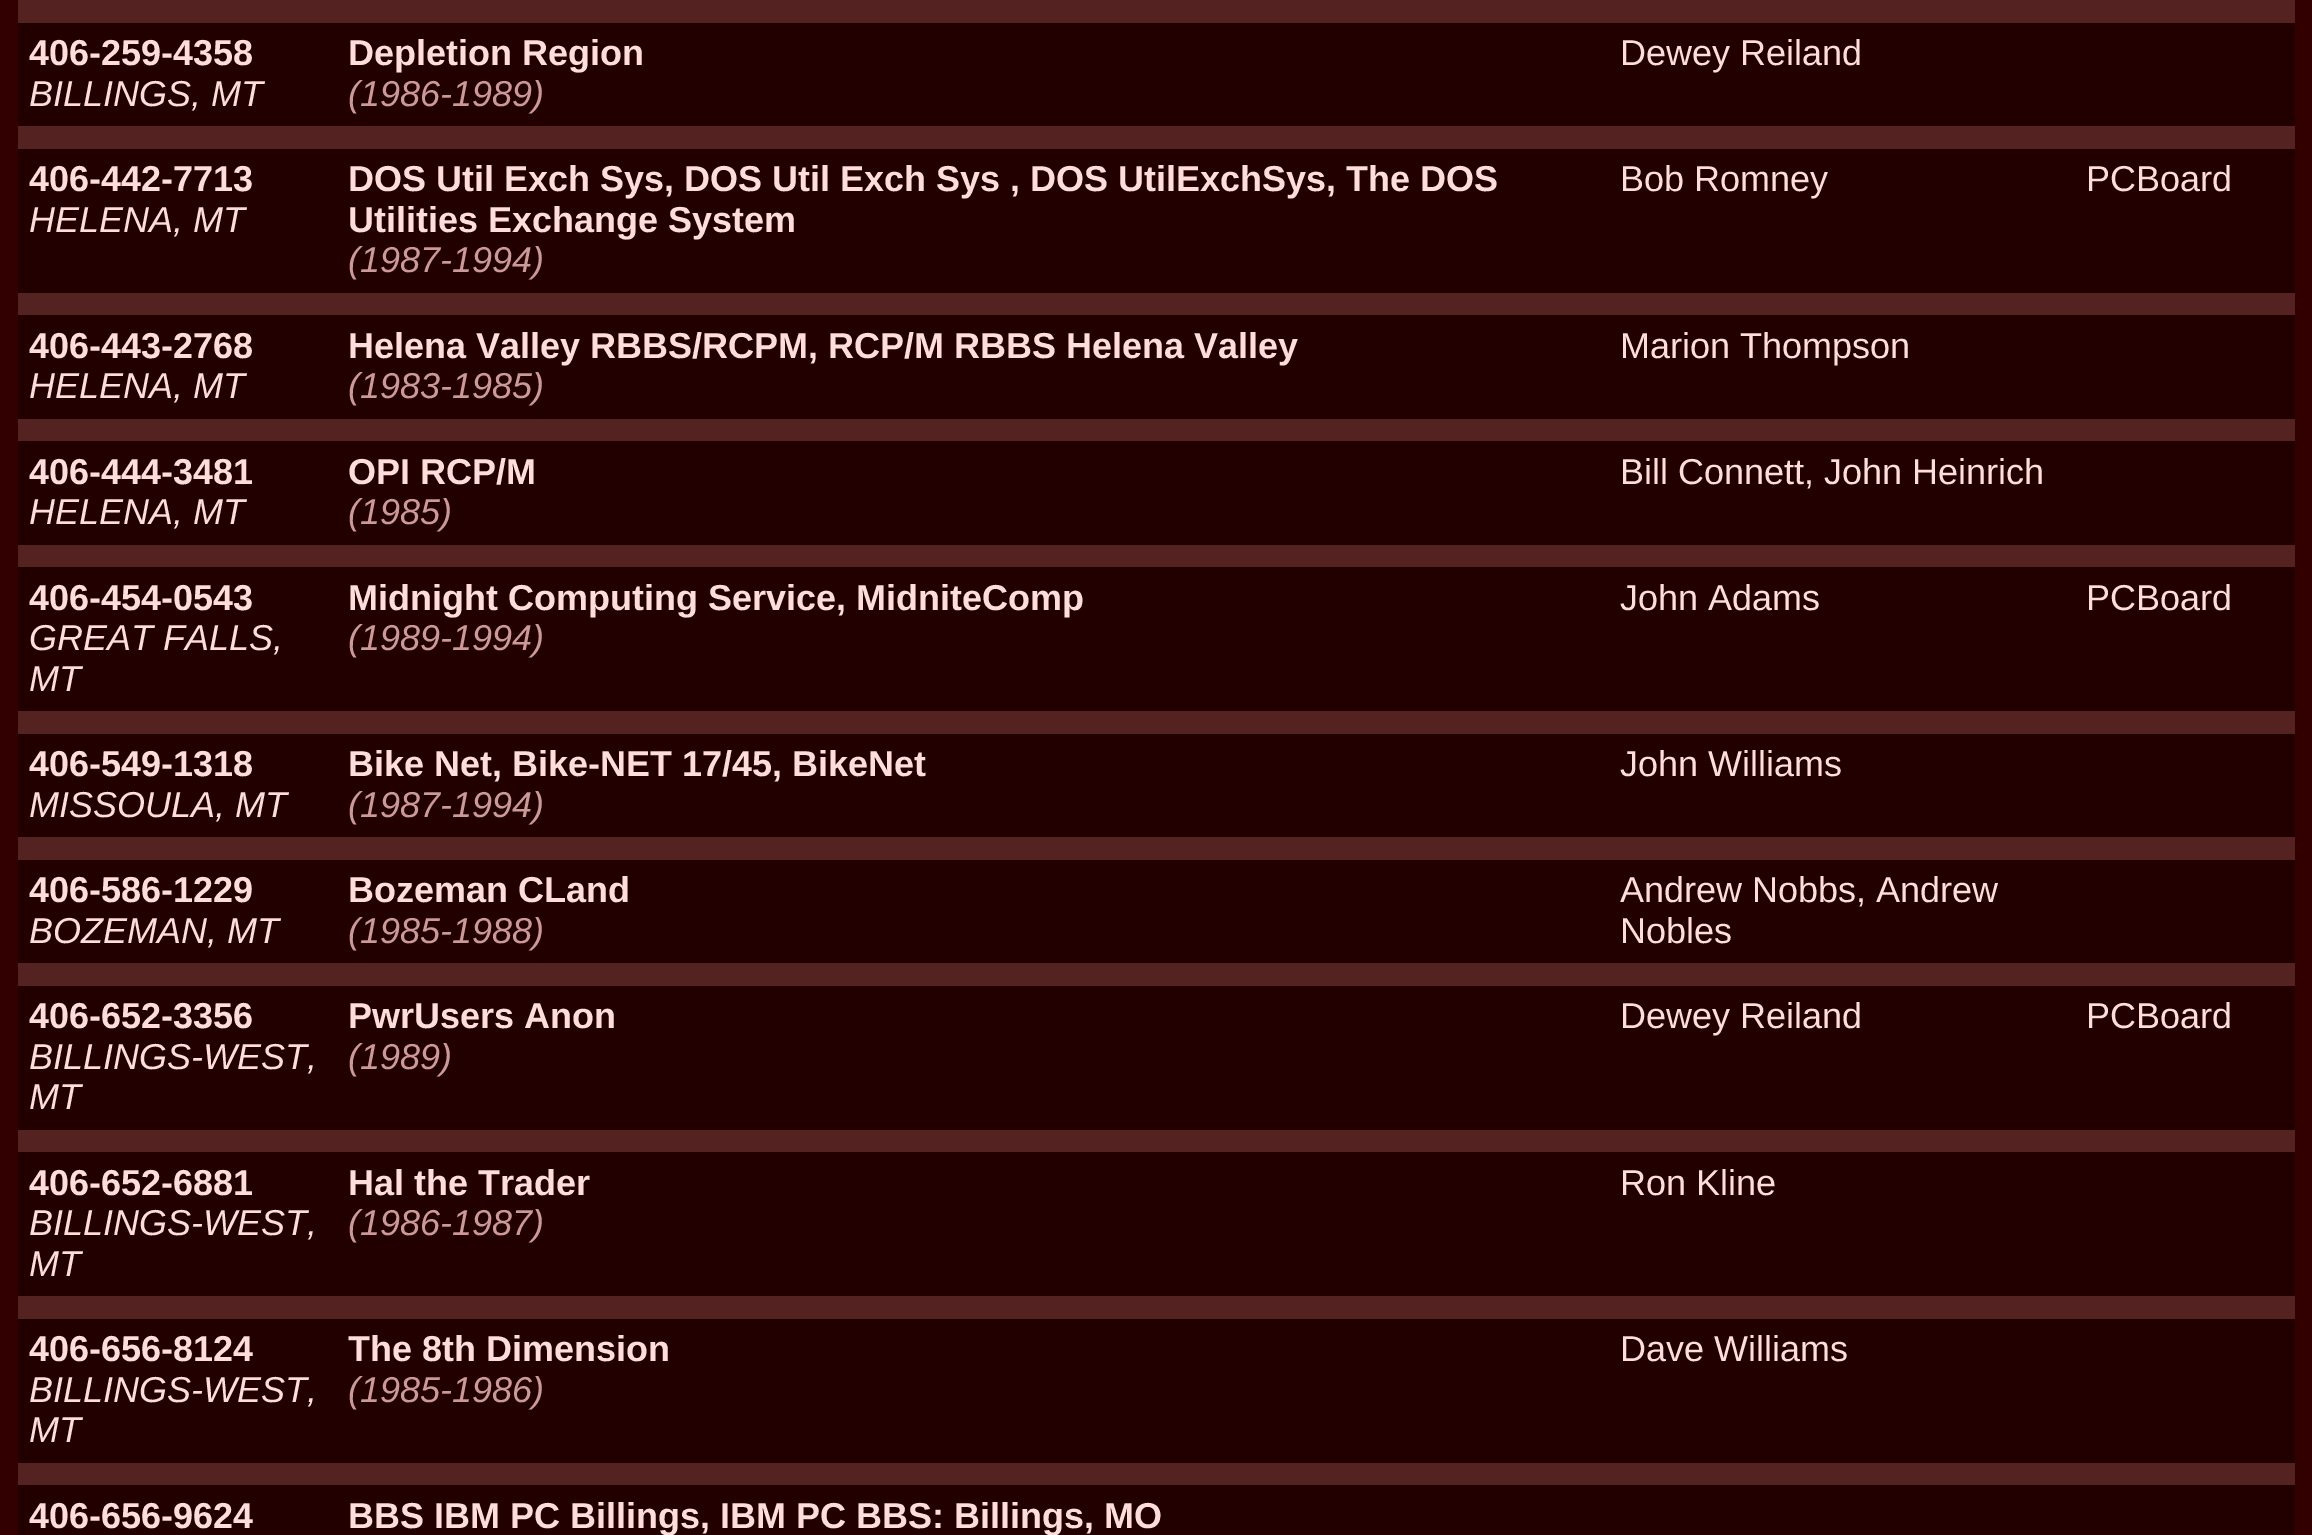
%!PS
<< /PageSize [2312 1535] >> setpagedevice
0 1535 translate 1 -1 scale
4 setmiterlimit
0.2 0 0 setrgbcolor
0 0 2312 1535 rectfill
0.333 0.133 0.133 setrgbcolor
18 0 2277 23 rectfill
0.133 0 0 setrgbcolor
18 23 2277 103 rectfill
/LiberationSans-Bold [36 0 0 -36 0 0] selectfont
1 0.867 0.867 setrgbcolor
29 65 moveto (406-259-4358) show
/LiberationSans-Italic [36 0 0 -36 0 0] selectfont
29 106 moveto (BILLINGS, MT) show
/LiberationSans-Bold [36 0 0 -36 0 0] selectfont
348 65 moveto (Depletion Region) show
/LiberationSans-Italic [36 0 0 -36 0 0] selectfont
0.8 0.6 0.6 setrgbcolor
348 106 moveto (\(1986-1989\)) show
/LiberationSans-Regular [36 0 0 -36 0 0] selectfont
1 0.867 0.867 setrgbcolor
1620 65 moveto (Dewey Reiland) show
0.333 0.133 0.133 setrgbcolor
18 126 2277 23 rectfill
0.133 0 0 setrgbcolor
18 149 2277 144 rectfill
/LiberationSans-Bold [36 0 0 -36 0 0] selectfont
1 0.867 0.867 setrgbcolor
29 191 moveto (406-442-7713) show
/LiberationSans-Italic [36 0 0 -36 0 0] selectfont
29 232 moveto (HELENA, MT) show
/LiberationSans-Bold [36 0 0 -36 0 0] selectfont
348 191 moveto (DOS Util Exch Sys, DOS Util Exch Sys , DOS UtilExchSys, The DOS) show
348 232 moveto (Utilities Exchange System) show
/LiberationSans-Italic [36 0 0 -36 0 0] selectfont
0.8 0.6 0.6 setrgbcolor
348 272 moveto (\(1987-1994\)) show
/LiberationSans-Regular [36 0 0 -36 0 0] selectfont
1 0.867 0.867 setrgbcolor
1620 191 moveto (Bob Romney) show
2086 191 moveto (PCBoard) show
0.333 0.133 0.133 setrgbcolor
18 293 2277 22 rectfill
0.133 0 0 setrgbcolor
18 315 2277 104 rectfill
/LiberationSans-Bold [36 0 0 -36 0 0] selectfont
1 0.867 0.867 setrgbcolor
29 358 moveto (406-443-2768) show
/LiberationSans-Italic [36 0 0 -36 0 0] selectfont
29 398 moveto (HELENA, MT) show
/LiberationSans-Bold [36 0 0 -36 0 0] selectfont
348 358 moveto (Helena Valley RBBS/RCPM, RCP/M RBBS Helena Valley) show
/LiberationSans-Italic [36 0 0 -36 0 0] selectfont
0.8 0.6 0.6 setrgbcolor
348 398 moveto (\(1983-1985\)) show
/LiberationSans-Regular [36 0 0 -36 0 0] selectfont
1 0.867 0.867 setrgbcolor
1620 358 moveto (Marion Thompson) show
0.333 0.133 0.133 setrgbcolor
18 419 2277 22 rectfill
0.133 0 0 setrgbcolor
18 441 2277 104 rectfill
/LiberationSans-Bold [36 0 0 -36 0 0] selectfont
1 0.867 0.867 setrgbcolor
29 484 moveto (406-444-3481) show
/LiberationSans-Italic [36 0 0 -36 0 0] selectfont
29 524 moveto (HELENA, MT) show
/LiberationSans-Bold [36 0 0 -36 0 0] selectfont
348 484 moveto (OPI RCP/M) show
/LiberationSans-Italic [36 0 0 -36 0 0] selectfont
0.8 0.6 0.6 setrgbcolor
348 524 moveto (\(1985\)) show
/LiberationSans-Regular [36 0 0 -36 0 0] selectfont
1 0.867 0.867 setrgbcolor
1620 484 moveto (Bill Connett, John Heinrich) show
0.333 0.133 0.133 setrgbcolor
18 545 2277 22 rectfill
0.133 0 0 setrgbcolor
18 567 2277 144 rectfill
/LiberationSans-Bold [36 0 0 -36 0 0] selectfont
1 0.867 0.867 setrgbcolor
29 610 moveto (406-454-0543) show
/LiberationSans-Italic [36 0 0 -36 0 0] selectfont
29 650 moveto (GREAT FALLS,) show
29 691 moveto (MT) show
/LiberationSans-Bold [36 0 0 -36 0 0] selectfont
348 610 moveto (Midnight Computing Service, MidniteComp) show
/LiberationSans-Italic [36 0 0 -36 0 0] selectfont
0.8 0.6 0.6 setrgbcolor
348 650 moveto (\(1989-1994\)) show
/LiberationSans-Regular [36 0 0 -36 0 0] selectfont
1 0.867 0.867 setrgbcolor
1620 610 moveto (John Adams) show
2086 610 moveto (PCBoard) show
0.333 0.133 0.133 setrgbcolor
18 711 2277 23 rectfill
0.133 0 0 setrgbcolor
18 734 2277 103 rectfill
/LiberationSans-Bold [36 0 0 -36 0 0] selectfont
1 0.867 0.867 setrgbcolor
29 776 moveto (406-549-1318) show
/LiberationSans-Italic [36 0 0 -36 0 0] selectfont
29 817 moveto (MISSOULA, MT) show
/LiberationSans-Bold [36 0 0 -36 0 0] selectfont
348 776 moveto (Bike Net, Bike-NET 17/45, BikeNet) show
/LiberationSans-Italic [36 0 0 -36 0 0] selectfont
0.8 0.6 0.6 setrgbcolor
348 817 moveto (\(1987-1994\)) show
/LiberationSans-Regular [36 0 0 -36 0 0] selectfont
1 0.867 0.867 setrgbcolor
1620 776 moveto (John Williams) show
0.333 0.133 0.133 setrgbcolor
18 837 2277 23 rectfill
0.133 0 0 setrgbcolor
18 860 2277 103 rectfill
/LiberationSans-Bold [36 0 0 -36 0 0] selectfont
1 0.867 0.867 setrgbcolor
29 902 moveto (406-586-1229) show
/LiberationSans-Italic [36 0 0 -36 0 0] selectfont
29 943 moveto (BOZEMAN, MT) show
/LiberationSans-Bold [36 0 0 -36 0 0] selectfont
348 902 moveto (Bozeman CLand) show
/LiberationSans-Italic [36 0 0 -36 0 0] selectfont
0.8 0.6 0.6 setrgbcolor
348 943 moveto (\(1985-1988\)) show
/LiberationSans-Regular [36 0 0 -36 0 0] selectfont
1 0.867 0.867 setrgbcolor
1620 902 moveto (Andrew Nobbs, Andrew) show
1620 943 moveto (Nobles) show
0.333 0.133 0.133 setrgbcolor
18 963 2277 23 rectfill
0.133 0 0 setrgbcolor
18 986 2277 144 rectfill
/LiberationSans-Bold [36 0 0 -36 0 0] selectfont
1 0.867 0.867 setrgbcolor
29 1028 moveto (406-652-3356) show
/LiberationSans-Italic [36 0 0 -36 0 0] selectfont
29 1069 moveto (BILLINGS-WEST,) show
29 1109 moveto (MT) show
/LiberationSans-Bold [36 0 0 -36 0 0] selectfont
348 1028 moveto (PwrUsers Anon) show
/LiberationSans-Italic [36 0 0 -36 0 0] selectfont
0.8 0.6 0.6 setrgbcolor
348 1069 moveto (\(1989\)) show
/LiberationSans-Regular [36 0 0 -36 0 0] selectfont
1 0.867 0.867 setrgbcolor
1620 1028 moveto (Dewey Reiland) show
2086 1028 moveto (PCBoard) show
0.333 0.133 0.133 setrgbcolor
18 1130 2277 22 rectfill
0.133 0 0 setrgbcolor
18 1152 2277 144 rectfill
/LiberationSans-Bold [36 0 0 -36 0 0] selectfont
1 0.867 0.867 setrgbcolor
29 1195 moveto (406-652-6881) show
/LiberationSans-Italic [36 0 0 -36 0 0] selectfont
29 1235 moveto (BILLINGS-WEST,) show
29 1276 moveto (MT) show
/LiberationSans-Bold [36 0 0 -36 0 0] selectfont
348 1195 moveto (Hal the Trader) show
/LiberationSans-Italic [36 0 0 -36 0 0] selectfont
0.8 0.6 0.6 setrgbcolor
348 1235 moveto (\(1986-1987\)) show
/LiberationSans-Regular [36 0 0 -36 0 0] selectfont
1 0.867 0.867 setrgbcolor
1620 1195 moveto (Ron Kline) show
0.333 0.133 0.133 setrgbcolor
18 1296 2277 23 rectfill
0.133 0 0 setrgbcolor
18 1319 2277 144 rectfill
/LiberationSans-Bold [36 0 0 -36 0 0] selectfont
1 0.867 0.867 setrgbcolor
29 1361 moveto (406-656-8124) show
/LiberationSans-Italic [36 0 0 -36 0 0] selectfont
29 1402 moveto (BILLINGS-WEST,) show
29 1442 moveto (MT) show
/LiberationSans-Bold [36 0 0 -36 0 0] selectfont
348 1361 moveto (The 8th Dimension) show
/LiberationSans-Italic [36 0 0 -36 0 0] selectfont
0.8 0.6 0.6 setrgbcolor
348 1402 moveto (\(1985-1986\)) show
/LiberationSans-Regular [36 0 0 -36 0 0] selectfont
1 0.867 0.867 setrgbcolor
1620 1361 moveto (Dave Williams) show
0.333 0.133 0.133 setrgbcolor
18 1463 2277 22 rectfill
0.133 0 0 setrgbcolor
18 1485 2277 50 rectfill
/LiberationSans-Bold [36 0 0 -36 0 0] selectfont
1 0.867 0.867 setrgbcolor
29 1528 moveto (406-656-9624) show
348 1528 moveto (BBS IBM PC Billings, IBM PC BBS: Billings, MO) show
showpage
